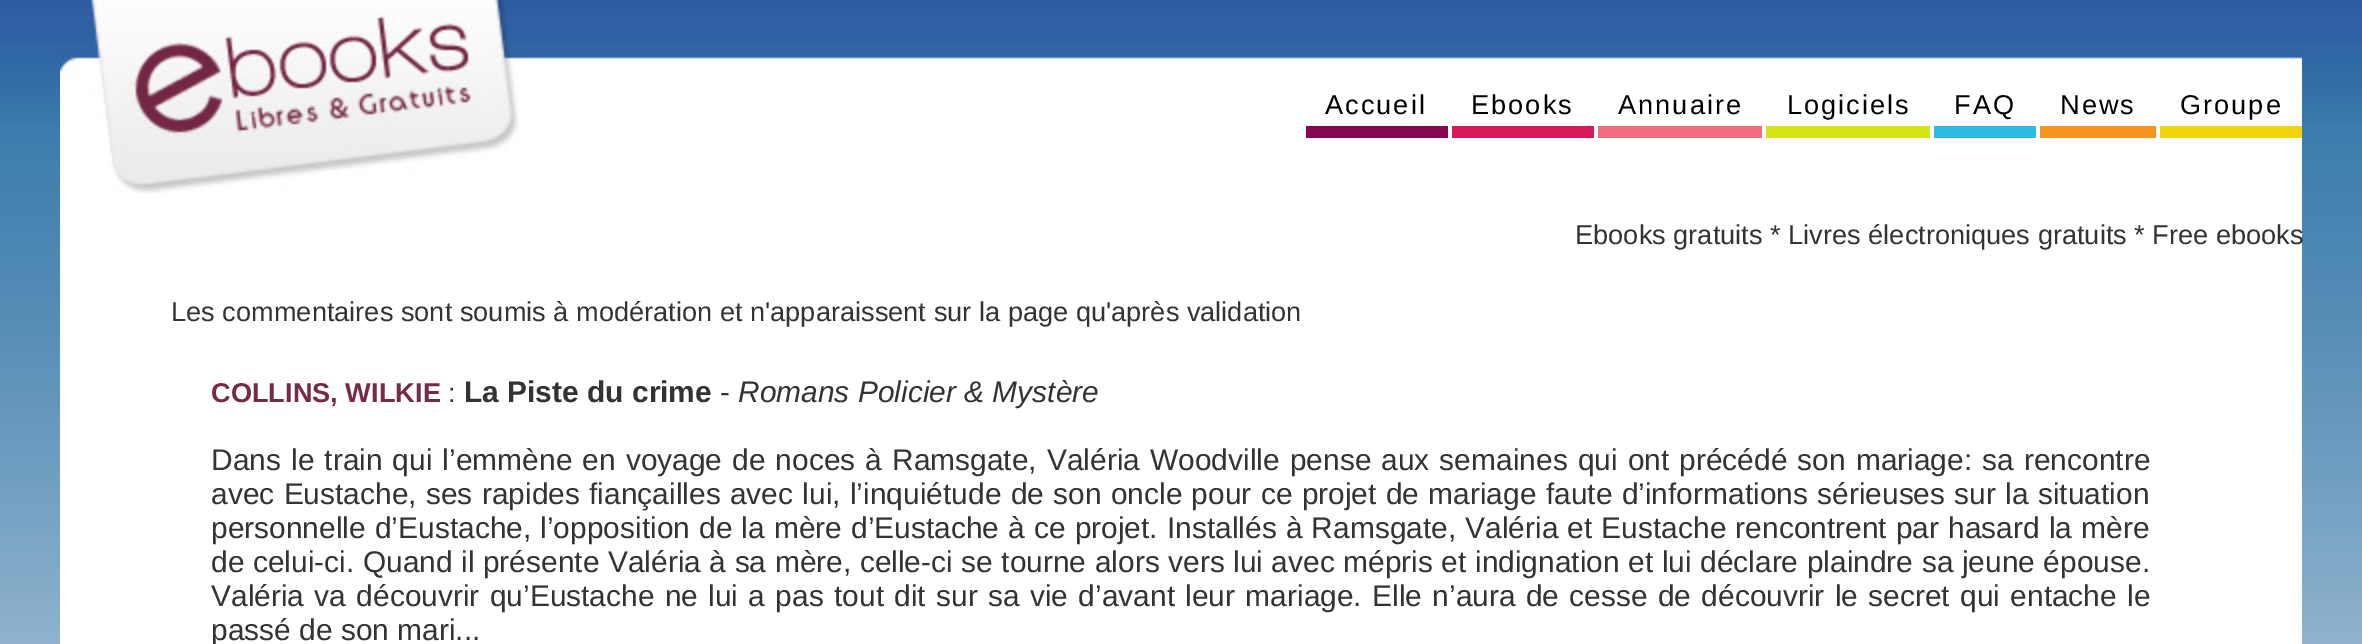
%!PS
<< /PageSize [2362 644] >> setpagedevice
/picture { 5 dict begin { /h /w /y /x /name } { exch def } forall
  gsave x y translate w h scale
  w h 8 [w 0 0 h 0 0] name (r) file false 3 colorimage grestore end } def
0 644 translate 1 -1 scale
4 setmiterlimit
1 setgray
0 0 2362 644 rectfill
(img1.rgb) 0 0 2362 644 picture
60 59 2242 585 rectfill
(img2.rgb) 519 0 1783 59 picture
(img3.rgb) 60 0 459 194 picture
0.525 0.031 0.325 setrgbcolor
1306 126 142 12 rectfill
/LiberationSans-Regular [27.2 0 0 -27.2 0 0] selectfont
0 setgray
1325 114 moveto 2 0 (Accueil) ashow
0.835 0.102 0.341 setrgbcolor
1452 126 142 12 rectfill
0 setgray
1471 114 moveto 2 0 (Ebooks) ashow
0.949 0.427 0.49 setrgbcolor
1598 126 164 12 rectfill
0 setgray
1618 114 moveto 2 0 (Annuaire) ashow
0.835 0.894 0.086 setrgbcolor
1766 126 164 12 rectfill
0 setgray
1787 114 moveto 2 0 (Logiciels) ashow
0.173 0.733 0.882 setrgbcolor
1934 126 102 12 rectfill
0 setgray
1954 114 moveto 2 0 (FAQ) ashow
0.969 0.58 0.114 setrgbcolor
2040 126 116 12 rectfill
0 setgray
2060 114 moveto 2 0 (News) ashow
0.949 0.831 0.039 setrgbcolor
2160 126 142 12 rectfill
0 setgray
2180 114 moveto 2 0 (Groupe) ashow
0.2 setgray
1575 244 moveto (Ebooks gratuits * Livres électroniques gratuits * Free ebooks) show
171 321 moveto (Les commentaires sont soumis à modération et n'apparaissent sur la page qu'après validation) show
/LiberationSans-Bold [27.2 0 0 -27.2 0 0] selectfont
0.463 0.165 0.282 setrgbcolor
211 402 moveto (COLLINS, WILKIE) show
/LiberationSans-Regular [27.2 0 0 -27.2 0 0] selectfont
0.2 setgray
448 402 moveto (:) show
/LiberationSans-Bold [29.92 0 0 -29.92 0 0] selectfont
464 402 moveto (La Piste du crime) show
/LiberationSans-Regular [29.92 0 0 -29.92 0 0] selectfont
720 402 moveto (-) show
/LiberationSans-Italic [29.92 0 0 -29.92 0 0] selectfont
738 402 moveto (Romans Policier & Mystère) show
/LiberationSans-Regular [29.92 0 0 -29.92 0 0] selectfont
211 470 moveto 1.75 0 32 (Dans le train qui l’emmène en voyage de noces à Ramsgate, Valéria Woodville pense aux semaines qui ont précédé son mariage: sa rencontre) widthshow
211 504 moveto 1 0 32 (avec Eustache, ses rapides fiançailles avec lui, l’inquiétude de son oncle pour ce projet de mariage faute d’informations sérieuses sur la situation) widthshow
211 538 moveto 0.8 0 32 (personnelle d’Eustache, l’opposition de la mère d’Eustache à ce projet. Installés à Ramsgate, Valéria et Eustache rencontrent par hasard la mère) widthshow
211 572 moveto 0.2 0 32 (de celui-ci. Quand il présente Valéria à sa mère, celle-ci se tourne alors vers lui avec mépris et indignation et lui déclare plaindre sa jeune épouse.) widthshow
211 606 moveto 2 0 32 (Valéria va découvrir qu’Eustache ne lui a pas tout dit sur sa vie d’avant leur mariage. Elle n’aura de cesse de découvrir le secret qui entache le) widthshow
211 640 moveto (passé de son mari...) show
showpage
